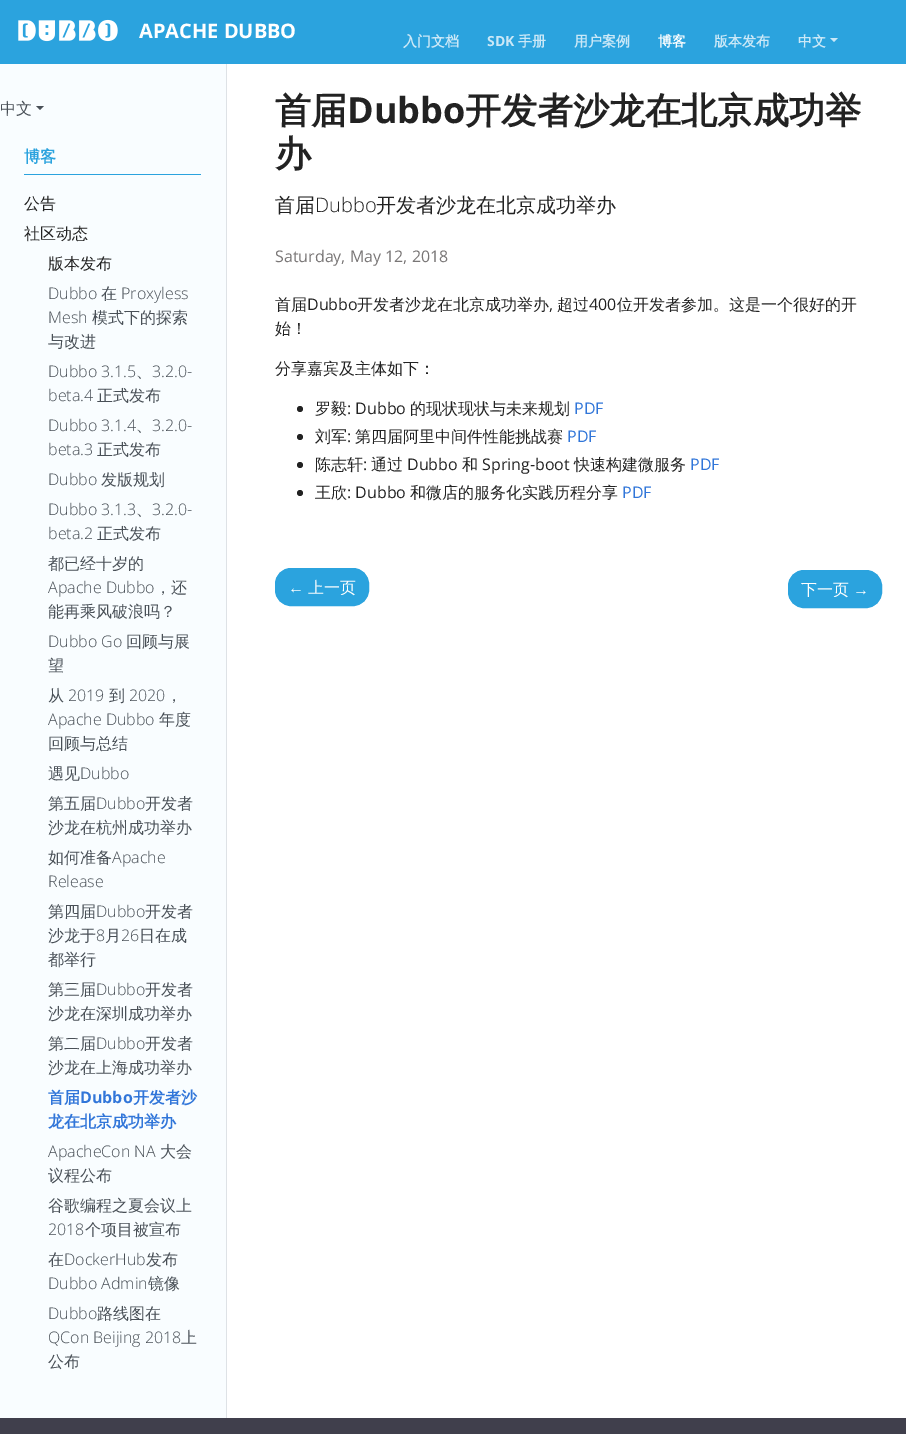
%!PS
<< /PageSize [906 1434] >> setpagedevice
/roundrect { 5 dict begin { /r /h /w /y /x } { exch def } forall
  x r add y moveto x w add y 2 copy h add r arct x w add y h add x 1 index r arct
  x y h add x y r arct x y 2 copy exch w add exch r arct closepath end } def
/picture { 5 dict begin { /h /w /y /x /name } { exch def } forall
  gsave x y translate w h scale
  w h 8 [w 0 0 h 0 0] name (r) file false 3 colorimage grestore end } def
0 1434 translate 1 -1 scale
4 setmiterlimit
1 setgray
0 0 906 1434 rectfill
0.169 0.639 0.871 setrgbcolor
0 0 906 64 rectfill
(img1.rgb) 18 19 100 23 picture
/OpenSans-Bold [20 0 0 -20 0 0] selectfont
1 setgray
139 38 moveto (APACHE DUBBO) show
/WenQuanYiZenHei-Bold [14 0 0 -14 0 0] selectfont
0.792 0.91 0.969 setrgbcolor
403 46 moveto (入门文档) show
/OpenSans-Bold [14 0 0 -14 0 0] selectfont
487 46 moveto (SDK) show
/WenQuanYiZenHei-Bold [14 0 0 -14 0 0] selectfont
518 46 moveto (手册) show
574 46 moveto (用户案例) show
1 setgray
658 46 moveto (博客) show
0.792 0.91 0.969 setrgbcolor
714 46 moveto (版本发布) show
798 46 moveto (中文) show
newpath 830 38 moveto 838 38 lineto 834 42 lineto closepath fill
0.976 0.992 1 setrgbcolor
0 64 226 1354 rectfill
0.871 0.886 0.902 setrgbcolor
226 64 1 1354 rectfill
/WenQuanYiZenHei-Medium [16 0 0 -16 0 0] selectfont
0.286 0.314 0.341 setrgbcolor
0 114 moveto (中文) show
newpath 36 106 moveto 44 106 lineto 40 110 lineto closepath fill
0.169 0.639 0.871 setrgbcolor
24 174 177 1 rectfill
/WenQuanYiZenHei-Bold [16 0 0 -16 0 0] selectfont
24 162 moveto (博客) show
/WenQuanYiZenHei-Medium [16 0 0 -16 0 0] selectfont
0.133 setgray
24 209 moveto (公告) show
24 239 moveto (社区动态) show
48 269 moveto (版本发布) show
/OpenSans-Light [16 0 0 -16 0 0] selectfont
0.286 0.314 0.341 setrgbcolor
48 299 moveto (Dubbo) show
/WenQuanYiZenHei-Medium [16 0 0 -16 0 0] selectfont
101 299 moveto (在) show
/OpenSans-Light [16 0 0 -16 0 0] selectfont
121 299 moveto (Proxyless) show
48 323 moveto (Mesh) show
/WenQuanYiZenHei-Medium [16 0 0 -16 0 0] selectfont
92 323 moveto (模式下的探索) show
48 347 moveto (与改进) show
/OpenSans-Light [16 0 0 -16 0 0] selectfont
48 377 moveto (Dubbo 3.1.5) show
/WenQuanYiZenHei-Medium [16 0 0 -16 0 0] selectfont
136 377 moveto (、) show
/OpenSans-Light [16 0 0 -16 0 0] selectfont
152 377 moveto (3.2.0-) show
48 401 moveto (beta.4) show
/WenQuanYiZenHei-Medium [16 0 0 -16 0 0] selectfont
97 401 moveto (正式发布) show
/OpenSans-Light [16 0 0 -16 0 0] selectfont
48 431 moveto (Dubbo 3.1.4) show
/WenQuanYiZenHei-Medium [16 0 0 -16 0 0] selectfont
136 431 moveto (、) show
/OpenSans-Light [16 0 0 -16 0 0] selectfont
152 431 moveto (3.2.0-) show
48 455 moveto (beta.3) show
/WenQuanYiZenHei-Medium [16 0 0 -16 0 0] selectfont
97 455 moveto (正式发布) show
/OpenSans-Light [16 0 0 -16 0 0] selectfont
48 485 moveto (Dubbo) show
/WenQuanYiZenHei-Medium [16 0 0 -16 0 0] selectfont
101 485 moveto (发版规划) show
/OpenSans-Light [16 0 0 -16 0 0] selectfont
48 515 moveto (Dubbo 3.1.3) show
/WenQuanYiZenHei-Medium [16 0 0 -16 0 0] selectfont
136 515 moveto (、) show
/OpenSans-Light [16 0 0 -16 0 0] selectfont
152 515 moveto (3.2.0-) show
48 539 moveto (beta.2) show
/WenQuanYiZenHei-Medium [16 0 0 -16 0 0] selectfont
97 539 moveto (正式发布) show
48 569 moveto (都已经十岁的) show
/OpenSans-Light [16 0 0 -16 0 0] selectfont
48 593 moveto (Apache Dubbo) show
/WenQuanYiZenHei-Medium [16 0 0 -16 0 0] selectfont
155 593 moveto (，还) show
48 617 moveto (能再乘风破浪吗？) show
/OpenSans-Light [16 0 0 -16 0 0] selectfont
48 647 moveto (Dubbo Go) show
/WenQuanYiZenHei-Medium [16 0 0 -16 0 0] selectfont
126 647 moveto (回顾与展) show
48 671 moveto (望) show
48 701 moveto (从) show
/OpenSans-Light [16 0 0 -16 0 0] selectfont
68 701 moveto (2019) show
/WenQuanYiZenHei-Medium [16 0 0 -16 0 0] selectfont
109 701 moveto (到) show
/OpenSans-Light [16 0 0 -16 0 0] selectfont
129 701 moveto (2020) show
/WenQuanYiZenHei-Medium [16 0 0 -16 0 0] selectfont
166 701 moveto (，) show
/OpenSans-Light [16 0 0 -16 0 0] selectfont
48 725 moveto (Apache Dubbo) show
/WenQuanYiZenHei-Medium [16 0 0 -16 0 0] selectfont
159 725 moveto (年度) show
48 749 moveto (回顾与总结) show
48 779 moveto (遇见) show
/OpenSans-Light [16 0 0 -16 0 0] selectfont
80 779 moveto (Dubbo) show
/WenQuanYiZenHei-Medium [16 0 0 -16 0 0] selectfont
48 809 moveto (第五届) show
/OpenSans-Light [16 0 0 -16 0 0] selectfont
96 809 moveto (Dubbo) show
/WenQuanYiZenHei-Medium [16 0 0 -16 0 0] selectfont
145 809 moveto (开发者) show
48 833 moveto (沙龙在杭州成功举办) show
48 863 moveto (如何准备) show
/OpenSans-Light [16 0 0 -16 0 0] selectfont
112 863 moveto (Apache) show
48 887 moveto (Release) show
/WenQuanYiZenHei-Medium [16 0 0 -16 0 0] selectfont
48 917 moveto (第四届) show
/OpenSans-Light [16 0 0 -16 0 0] selectfont
96 917 moveto (Dubbo) show
/WenQuanYiZenHei-Medium [16 0 0 -16 0 0] selectfont
145 917 moveto (开发者) show
48 941 moveto (沙龙于) show
/OpenSans-Light [16 0 0 -16 0 0] selectfont
96 941 moveto (8) show
/WenQuanYiZenHei-Medium [16 0 0 -16 0 0] selectfont
105 941 moveto (月) show
/OpenSans-Light [16 0 0 -16 0 0] selectfont
121 941 moveto (26) show
/WenQuanYiZenHei-Medium [16 0 0 -16 0 0] selectfont
139 941 moveto (日在成) show
48 965 moveto (都举行) show
48 995 moveto (第三届) show
/OpenSans-Light [16 0 0 -16 0 0] selectfont
96 995 moveto (Dubbo) show
/WenQuanYiZenHei-Medium [16 0 0 -16 0 0] selectfont
145 995 moveto (开发者) show
48 1019 moveto (沙龙在深圳成功举办) show
48 1049 moveto (第二届) show
/OpenSans-Light [16 0 0 -16 0 0] selectfont
96 1049 moveto (Dubbo) show
/WenQuanYiZenHei-Medium [16 0 0 -16 0 0] selectfont
145 1049 moveto (开发者) show
48 1073 moveto (沙龙在上海成功举办) show
/WenQuanYiZenHei-Bold [16 0 0 -16 0 0] selectfont
0.192 0.463 0.851 setrgbcolor
48 1103 moveto (首届) show
/OpenSans-Bold [16 0 0 -16 0 0] selectfont
80 1103 moveto (Dubbo) show
/WenQuanYiZenHei-Bold [16 0 0 -16 0 0] selectfont
133 1103 moveto (开发者沙) show
48 1127 moveto (龙在北京成功举办) show
/OpenSans-Light [16 0 0 -16 0 0] selectfont
0.286 0.314 0.341 setrgbcolor
48 1157 moveto (ApacheCon NA) show
/WenQuanYiZenHei-Medium [16 0 0 -16 0 0] selectfont
160 1157 moveto (大会) show
48 1181 moveto (议程公布) show
48 1211 moveto (谷歌编程之夏会议上) show
/OpenSans-Light [16 0 0 -16 0 0] selectfont
48 1235 moveto (2018) show
/WenQuanYiZenHei-Medium [16 0 0 -16 0 0] selectfont
85 1235 moveto (个项目被宣布) show
48 1265 moveto (在) show
/OpenSans-Light [16 0 0 -16 0 0] selectfont
64 1265 moveto (DockerHub) show
/WenQuanYiZenHei-Medium [16 0 0 -16 0 0] selectfont
146 1265 moveto (发布) show
/OpenSans-Light [16 0 0 -16 0 0] selectfont
48 1289 moveto (Dubbo Admin) show
/WenQuanYiZenHei-Medium [16 0 0 -16 0 0] selectfont
148 1289 moveto (镜像) show
/OpenSans-Light [16 0 0 -16 0 0] selectfont
48 1319 moveto (Dubbo) show
/WenQuanYiZenHei-Medium [16 0 0 -16 0 0] selectfont
97 1319 moveto (路线图在) show
/OpenSans-Light [16 0 0 -16 0 0] selectfont
48 1343 moveto (QCon Beijing 2018) show
/WenQuanYiZenHei-Medium [16 0 0 -16 0 0] selectfont
181 1343 moveto (上) show
48 1367 moveto (公布) show
/WenQuanYiZenHei-Bold [36 0 0 -36 0 0] selectfont
0.133 setgray
275 123 moveto (首届) show
/OpenSans-Bold [36 0 0 -36 0 0] selectfont
347 123 moveto (Dubbo) show
/WenQuanYiZenHei-Bold [36 0 0 -36 0 0] selectfont
465 123 moveto (开发者沙龙在北京成功举) show
275 166 moveto (办) show
/WenQuanYiZenHei-Medium [20 0 0 -20 0 0] selectfont
275 212 moveto (首届) show
/OpenSans-Light [20 0 0 -20 0 0] selectfont
315 212 moveto (Dubbo) show
/WenQuanYiZenHei-Medium [20 0 0 -20 0 0] selectfont
376 212 moveto (开发者沙龙在北京成功举办) show
/OpenSans-Regular [16 0 0 -16 0 0] selectfont
0.475 0.463 0.463 setrgbcolor
275 262 moveto (Saturday, May 12, 2018) show
/WenQuanYiZenHei-Medium [16 0 0 -16 0 0] selectfont
0.133 setgray
275 310 moveto (首届) show
/OpenSans-Regular [16 0 0 -16 0 0] selectfont
307 310 moveto (Dubbo) show
/WenQuanYiZenHei-Medium [16 0 0 -16 0 0] selectfont
357 310 moveto (开发者沙龙在北京成功举办) show
/OpenSans-Regular [16 0 0 -16 0 0] selectfont
549 310 moveto (,) show
/WenQuanYiZenHei-Medium [16 0 0 -16 0 0] selectfont
557 310 moveto (超过) show
/OpenSans-Regular [16 0 0 -16 0 0] selectfont
589 310 moveto (400) show
/WenQuanYiZenHei-Medium [16 0 0 -16 0 0] selectfont
617 310 moveto (位开发者参加。这是一个很好的开) show
275 334 moveto (始！) show
275 374 moveto (分享嘉宾及主体如下：) show
newpath 300 409 3 0 360 arc closepath fill
315 414 moveto (罗毅) show
/OpenSans-Regular [16 0 0 -16 0 0] selectfont
347 414 moveto (: Dubbo) show
/WenQuanYiZenHei-Medium [16 0 0 -16 0 0] selectfont
410 414 moveto (的现状现状与未来规划) show
/OpenSans-Regular [16 0 0 -16 0 0] selectfont
0.192 0.463 0.851 setrgbcolor
574 414 moveto (PDF) show
0.133 setgray
newpath 300 437 3 0 360 arc closepath fill
/WenQuanYiZenHei-Medium [16 0 0 -16 0 0] selectfont
315 442 moveto (刘军) show
/OpenSans-Regular [16 0 0 -16 0 0] selectfont
347 442 moveto (:) show
/WenQuanYiZenHei-Medium [16 0 0 -16 0 0] selectfont
355 442 moveto (第四届阿里中间件性能挑战赛) show
/OpenSans-Regular [16 0 0 -16 0 0] selectfont
0.192 0.463 0.851 setrgbcolor
567 442 moveto (PDF) show
0.133 setgray
newpath 300 465 3 0 360 arc closepath fill
/WenQuanYiZenHei-Medium [16 0 0 -16 0 0] selectfont
315 470 moveto (陈志轩) show
/OpenSans-Regular [16 0 0 -16 0 0] selectfont
363 470 moveto (:) show
/WenQuanYiZenHei-Medium [16 0 0 -16 0 0] selectfont
371 470 moveto (通过) show
/OpenSans-Regular [16 0 0 -16 0 0] selectfont
407 470 moveto (Dubbo) show
/WenQuanYiZenHei-Medium [16 0 0 -16 0 0] selectfont
462 470 moveto (和) show
/OpenSans-Regular [16 0 0 -16 0 0] selectfont
482 470 moveto (Spring-boot) show
/WenQuanYiZenHei-Medium [16 0 0 -16 0 0] selectfont
574 470 moveto (快速构建微服务) show
/OpenSans-Regular [16 0 0 -16 0 0] selectfont
0.192 0.463 0.851 setrgbcolor
690 470 moveto (PDF) show
0.133 setgray
newpath 300 493 3 0 360 arc closepath fill
/WenQuanYiZenHei-Medium [16 0 0 -16 0 0] selectfont
315 498 moveto (王欣) show
/OpenSans-Regular [16 0 0 -16 0 0] selectfont
347 498 moveto (: Dubbo) show
/WenQuanYiZenHei-Medium [16 0 0 -16 0 0] selectfont
410 498 moveto (和微店的服务化实践历程分享) show
/OpenSans-Regular [16 0 0 -16 0 0] selectfont
0.192 0.463 0.851 setrgbcolor
622 498 moveto (PDF) show
0.169 0.639 0.871 setrgbcolor
275.5 568.5 93 37 15.5 roundrect gsave fill grestore
stroke
/LiberationSans-Regular [16 0 0 -16 0 0] selectfont
1 setgray
288 593 moveto (←) show
/WenQuanYiZenHei-Medium [16 0 0 -16 0 0] selectfont
308 593 moveto (上一页) show
0.169 0.639 0.871 setrgbcolor
788.5 570.5 93 37 15.5 roundrect gsave fill grestore
stroke
1 setgray
801 595 moveto (下一页) show
/LiberationSans-Regular [16 0 0 -16 0 0] selectfont
853 595 moveto (→) show
0.251 0.247 0.298 setrgbcolor
0 1418 906 16 rectfill
showpage
